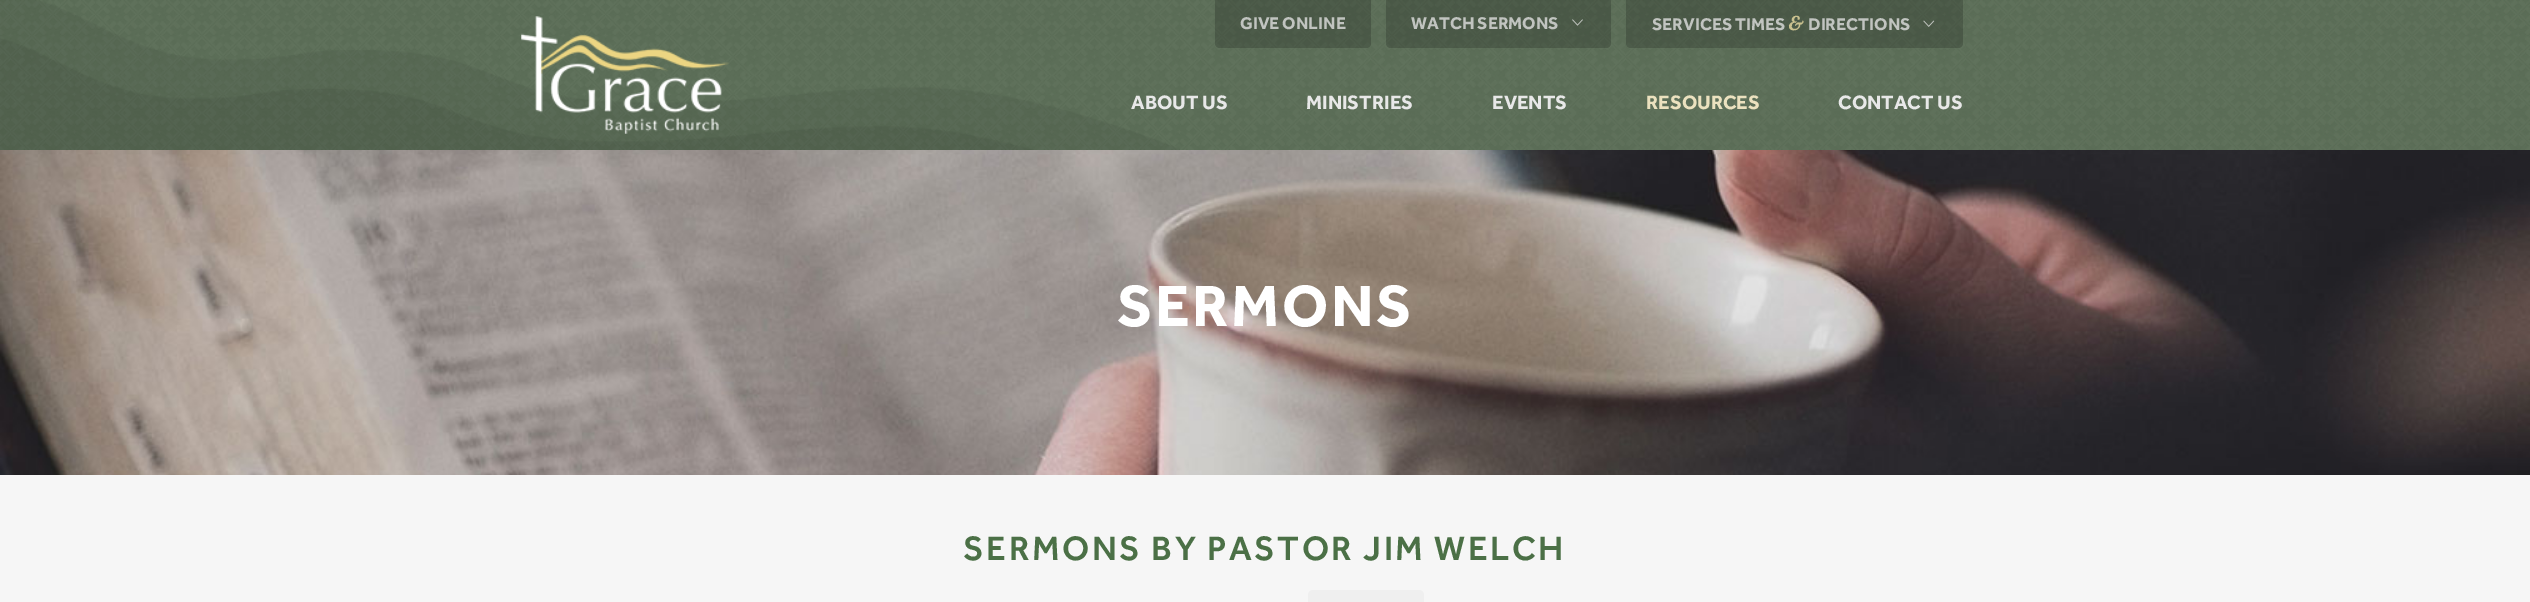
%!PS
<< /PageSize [2530 602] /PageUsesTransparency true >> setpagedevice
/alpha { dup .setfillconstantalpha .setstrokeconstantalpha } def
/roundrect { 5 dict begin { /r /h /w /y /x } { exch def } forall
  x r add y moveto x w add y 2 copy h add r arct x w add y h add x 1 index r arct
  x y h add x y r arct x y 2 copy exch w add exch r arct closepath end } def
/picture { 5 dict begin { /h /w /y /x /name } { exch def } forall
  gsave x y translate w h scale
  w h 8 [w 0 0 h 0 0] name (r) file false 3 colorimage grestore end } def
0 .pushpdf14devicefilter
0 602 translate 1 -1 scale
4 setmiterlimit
0.965 setgray
0 0 2530 602 rectfill
(img1.rgb) 0 0 2530 150 picture
(img2.rgb) 0 0 1180 150 picture
0.19 alpha
0 setgray
newpath 1215 0 moveto 1371 0 lineto 1371 43 lineto 1371 46 1369 48 1366 48 curveto 1220 48 lineto 1217 48 1215 46 1215 43 curveto closepath fill
/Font-Bold [17.5 0 0 -17.5 0 0] selectfont
1 alpha
0.757 0.769 0.753 setrgbcolor
1240 29 moveto (GIVE ONLINE) show
0.19 alpha
0 setgray
newpath 1386 0 moveto 1611 0 lineto 1611 43 lineto 1611 46 1609 48 1606 48 curveto 1391 48 lineto 1388 48 1386 46 1386 43 curveto closepath fill
1 alpha
0.757 0.769 0.753 setrgbcolor
1411 29 moveto (WATCH SERMONS) show
(img3.rgb) 1572 19 11 7 picture
0.19 alpha
0 setgray
newpath 1626 0 moveto 1963 0 lineto 1963 43 lineto 1963 46 1961 48 1958 48 curveto 1631 48 lineto 1628 48 1626 46 1626 43 curveto closepath fill
1 alpha
0.757 0.769 0.753 setrgbcolor
1652 30 moveto (SERVICES TIMES) show
/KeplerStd-BoldItalic [22 0 0 -22 0 0] selectfont
0.792 0.757 0.561 setrgbcolor
1788 30 moveto (&) show
/Font-Bold [17.5 0 0 -17.5 0 0] selectfont
0.757 0.769 0.753 setrgbcolor
1808 30 moveto (DIRECTIONS) show
(img4.rgb) 1923 20 12 7 picture
(img5.rgb) 521 16 208 118 picture
/Font-Bold [20 0 0 -20 0 0] selectfont
0.91 setgray
1131 109 moveto (ABOUT US) show
1306 109 moveto (MINISTRIES) show
1492 109 moveto (EVENTS) show
0.922 0.882 0.749 setrgbcolor
1646 109 moveto (RESOURCES) show
0.91 setgray
1838 109 moveto (CONTACT US) show
(img6.rgb) 0 150 2530 325 picture
/Font-Bold [60 0 0 -60 0 0] selectfont
1 setgray
1117 326 moveto 2.5 0 (SERMONS) ashow
/Font-Medium [35 0 0 -35 0 0] selectfont
0.294 0.439 0.275 setrgbcolor
963 560 moveto 2.5 0 (SERMONS BY PASTOR JIM WELCH) ashow
0.937 setgray
1308 590 116 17 5 roundrect fill
.poppdf14devicefilter showpage
